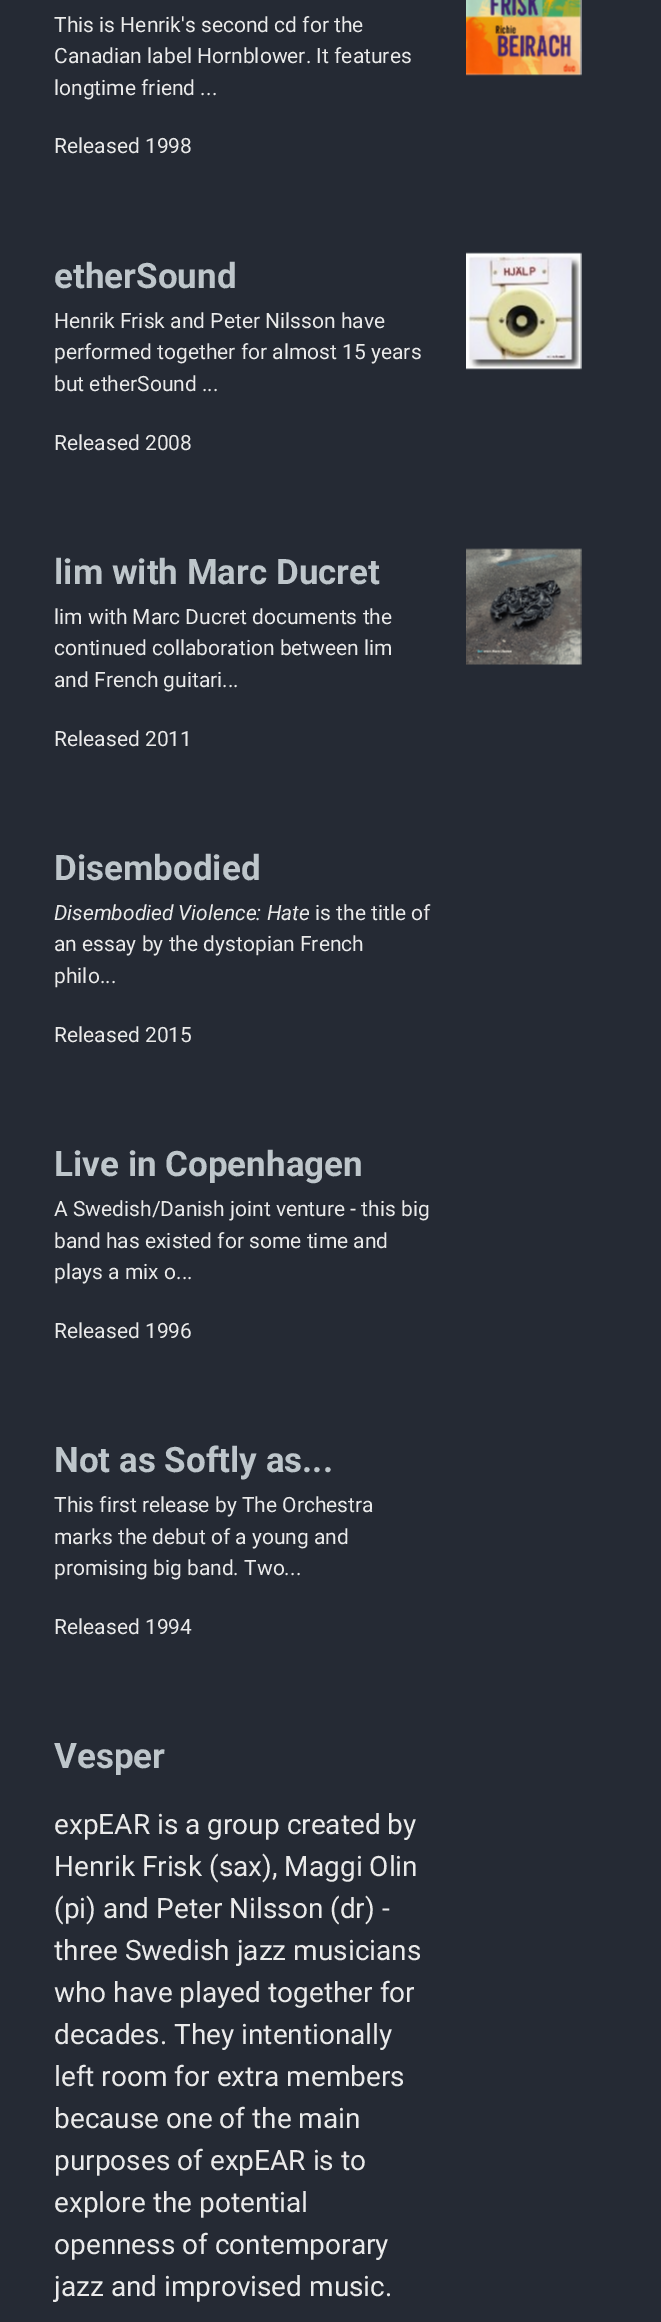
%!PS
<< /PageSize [661 2322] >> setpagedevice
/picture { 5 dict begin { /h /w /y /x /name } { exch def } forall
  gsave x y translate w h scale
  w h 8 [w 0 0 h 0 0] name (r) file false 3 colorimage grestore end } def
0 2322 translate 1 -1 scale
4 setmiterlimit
0.145 0.165 0.204 setrgbcolor
0 0 661 2322 rectfill
/Roboto-Regular [21 0 0 -21 0 0] selectfont
0.918 setgray
54 32 moveto (This is Henrik's second cd for the) show
54 63 moveto (Canadian label Hornblower. It features) show
54 95 moveto (longtime friend ...) show
54 153 moveto (Released 1998) show
(img1.rgb) 466 0 116 76 picture
/Roboto-Bold [35 0 0 -35 0 0] selectfont
0.745 0.776 0.796 setrgbcolor
54 288 moveto (etherSound) show
/Roboto-Regular [21 0 0 -21 0 0] selectfont
0.918 setgray
54 328 moveto (Henrik Frisk and Peter Nilsson have) show
54 359 moveto (performed together for almost 15 years) show
54 391 moveto (but etherSound ...) show
54 450 moveto (Released 2008) show
(img2.rgb) 466 252 116 118 picture
/Roboto-Bold [35 0 0 -35 0 0] selectfont
0.745 0.776 0.796 setrgbcolor
54 584 moveto (lim with Marc Ducret) show
/Roboto-Regular [21 0 0 -21 0 0] selectfont
0.918 setgray
54 624 moveto (lim with Marc Ducret documents the) show
54 655 moveto (continued collaboration between lim) show
54 687 moveto (and French guitari...) show
54 746 moveto (Released 2011) show
(img3.rgb) 466 548 116 117 picture
/Roboto-Bold [35 0 0 -35 0 0] selectfont
0.745 0.776 0.796 setrgbcolor
54 880 moveto (Disembodied) show
/Roboto-Italic [21 0 0 -21 0 0] selectfont
0.918 setgray
54 920 moveto (Disembodied Violence: Hate) show
/Roboto-Regular [21 0 0 -21 0 0] selectfont
315 920 moveto (is the title of) show
54 951 moveto (an essay by the dystopian French) show
54 983 moveto (philo...) show
54 1042 moveto (Released 2015) show
/Roboto-Bold [35 0 0 -35 0 0] selectfont
0.745 0.776 0.796 setrgbcolor
54 1176 moveto (Live in Copenhagen) show
/Roboto-Regular [21 0 0 -21 0 0] selectfont
0.918 setgray
54 1216 moveto (A Swedish/Danish joint venture - this big) show
54 1248 moveto (band has existed for some time and) show
54 1279 moveto (plays a mix o...) show
54 1338 moveto (Released 1996) show
/Roboto-Bold [35 0 0 -35 0 0] selectfont
0.745 0.776 0.796 setrgbcolor
54 1472 moveto (Not as Softly as...) show
/Roboto-Regular [21 0 0 -21 0 0] selectfont
0.918 setgray
54 1512 moveto (This first release by The Orchestra) show
54 1544 moveto (marks the debut of a young and) show
54 1575 moveto (promising big band. Two...) show
54 1634 moveto (Released 1994) show
/Roboto-Bold [35 0 0 -35 0 0] selectfont
0.745 0.776 0.796 setrgbcolor
54 1768 moveto (Vesper) show
/Roboto-Regular [28 0 0 -28 0 0] selectfont
0.918 setgray
54 1834 moveto (expEAR is a group created by) show
54 1876 moveto (Henrik Frisk \(sax\), Maggi Olin) show
54 1918 moveto (\(pi\) and Peter Nilsson \(dr\) -) show
54 1960 moveto (three Swedish jazz musicians) show
54 2002 moveto (who have played together for) show
54 2044 moveto (decades. They intentionally) show
54 2086 moveto (left room for extra members) show
54 2128 moveto (because one of the main) show
54 2170 moveto (purposes of expEAR is to) show
54 2212 moveto (explore the potential) show
54 2254 moveto (openness of contemporary) show
54 2296 moveto (jazz and improvised music.) show
showpage
